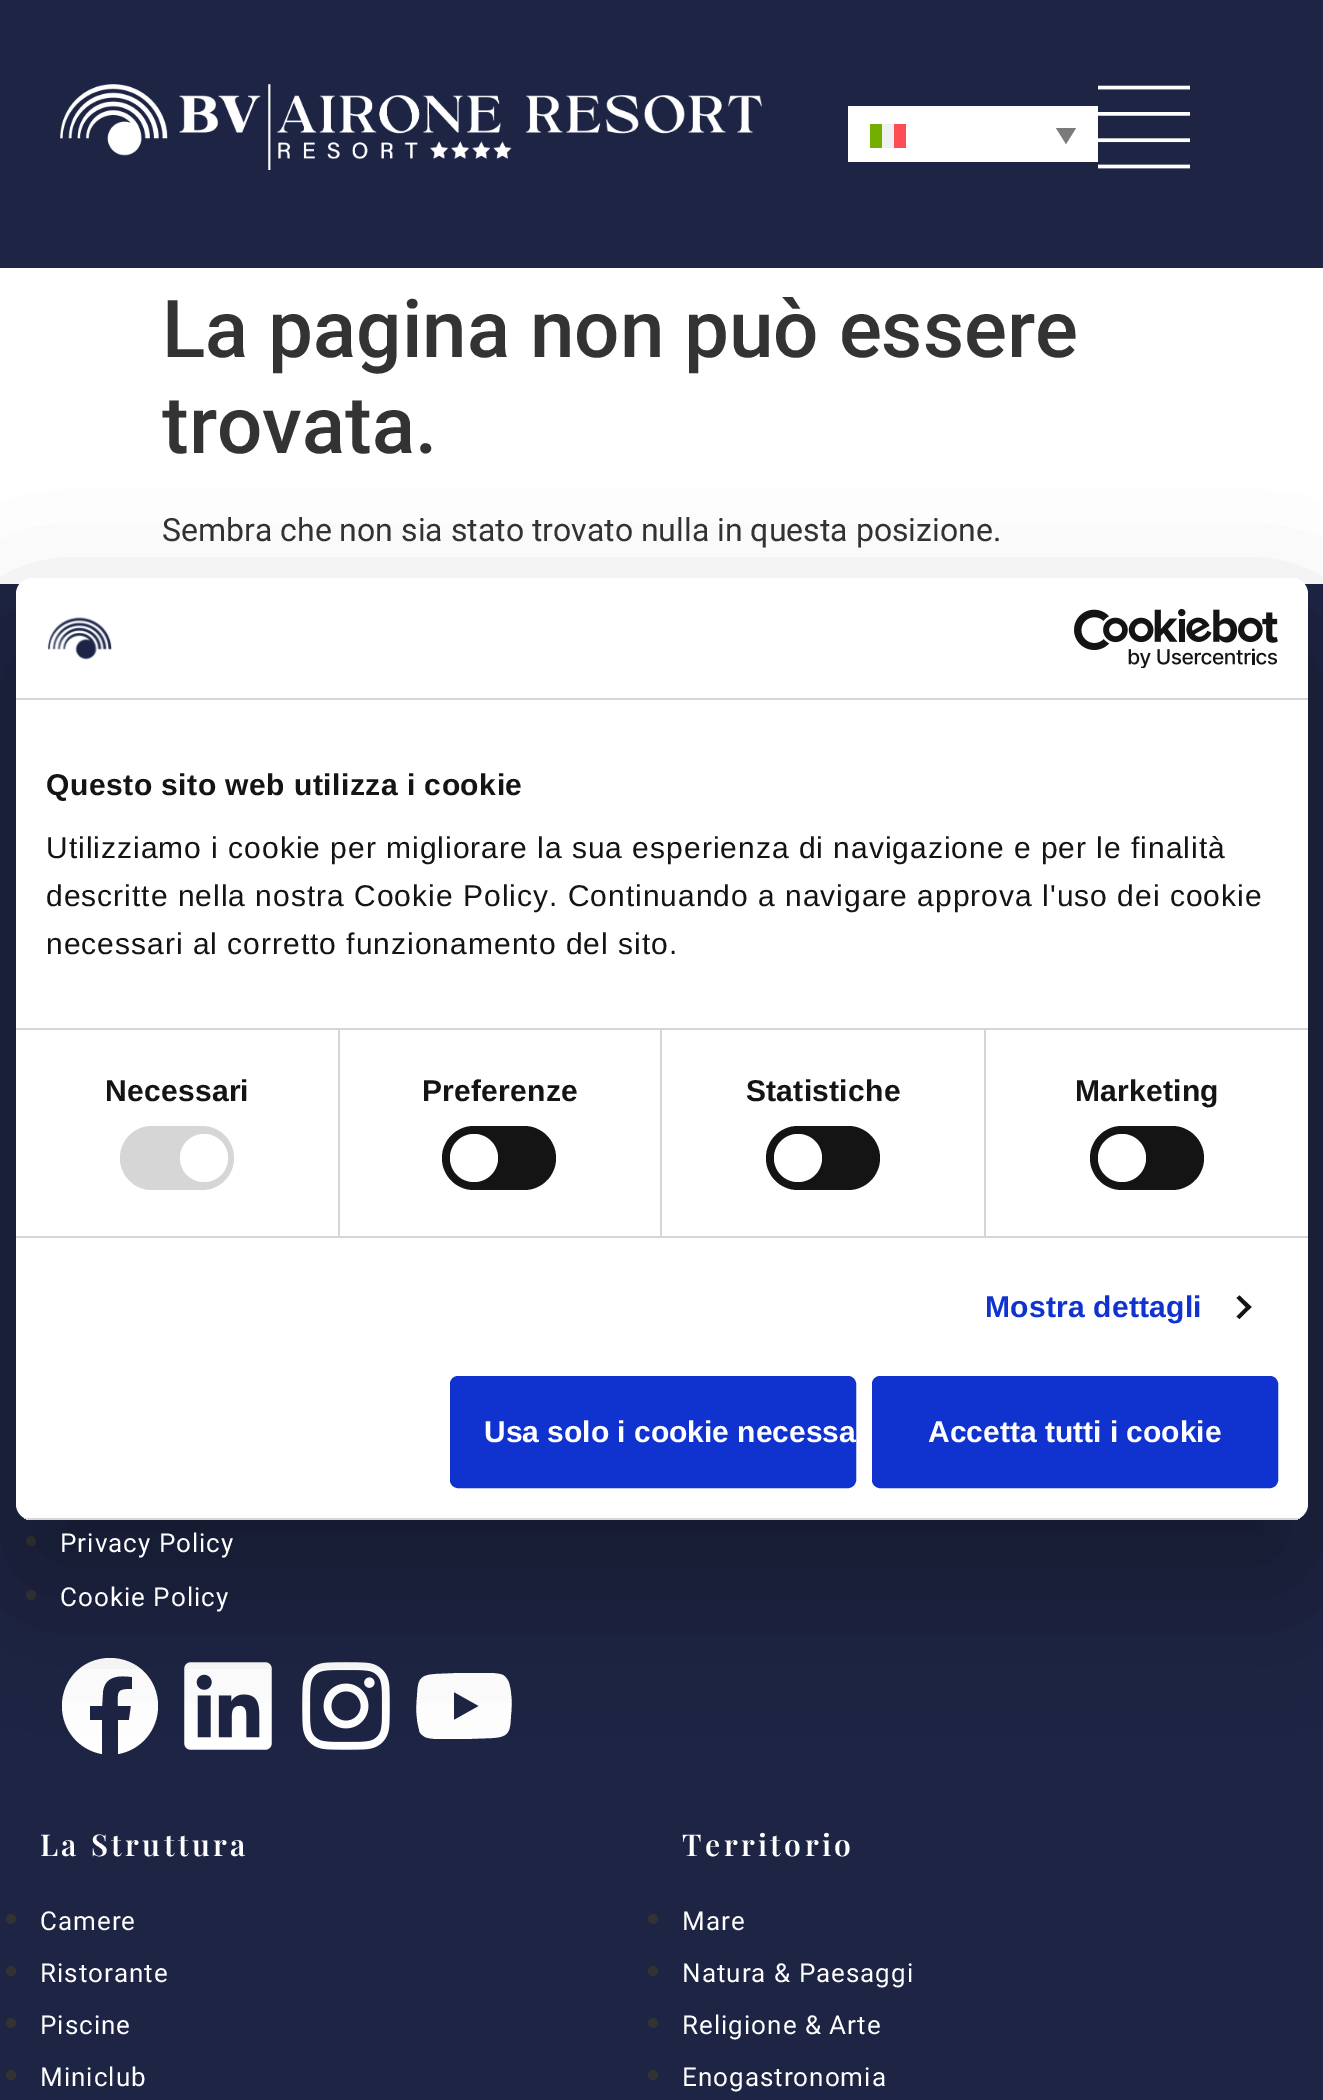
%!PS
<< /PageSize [1323 2100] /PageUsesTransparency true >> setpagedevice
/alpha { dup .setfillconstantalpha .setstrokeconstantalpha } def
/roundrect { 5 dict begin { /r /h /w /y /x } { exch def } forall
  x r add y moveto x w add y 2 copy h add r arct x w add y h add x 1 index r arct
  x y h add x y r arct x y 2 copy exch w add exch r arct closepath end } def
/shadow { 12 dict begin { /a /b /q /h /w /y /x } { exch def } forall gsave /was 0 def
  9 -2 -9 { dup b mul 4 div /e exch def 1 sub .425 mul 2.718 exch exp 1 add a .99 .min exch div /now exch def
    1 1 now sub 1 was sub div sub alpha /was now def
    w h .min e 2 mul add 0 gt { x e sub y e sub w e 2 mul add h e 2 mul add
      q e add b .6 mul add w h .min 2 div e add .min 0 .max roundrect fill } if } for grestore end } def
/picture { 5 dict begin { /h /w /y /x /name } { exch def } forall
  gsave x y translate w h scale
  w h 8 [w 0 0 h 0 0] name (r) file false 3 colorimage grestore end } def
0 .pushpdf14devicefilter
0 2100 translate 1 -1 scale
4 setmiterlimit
1 setgray
0 0 1323 2100 rectfill
0.114 0.141 0.267 setrgbcolor
0 0 1323 268 rectfill
(img1.rgb) 60 84 702 86 picture
1 setgray
848 106 250 56 rectfill
0.451 0.686 0 setrgbcolor
870 124 12 24 rectfill
0.941 setgray
882 124 12 24 rectfill
1 0.294 0.333 setrgbcolor
894 124 12 24 rectfill
0.478 setgray
newpath 1056 128 moveto 1076 128 lineto 1066 144 lineto closepath fill
(img2.rgb) 1098 85 92 84 picture
/Roboto-Medium [80 0 0 -80 0 0] selectfont
0.2 setgray
162 357 moveto (La pagina non può essere) show
162 453 moveto (trovata.) show
/Roboto-Regular [32 0 0 -32 0 0] selectfont
162 541 moveto (Sembra che non sia stato trovato nulla in questa posizione.) show
0.114 0.141 0.267 setrgbcolor
0 584 1323 1516 rectfill
0.2 setgray
newpath 31 1541 5 0 360 arc closepath fill
newpath 31 1595 5 0 360 arc closepath fill
1 setgray
newpath 158 1706 moveto 158 1679 137 1658 110 1658 curveto 83 1658 62 1679 62 1706 curveto 62 1730 79 1750 102 1754 curveto 102 1720 lineto 90 1720 lineto 90 1706 lineto 102 1706 lineto 103 1691 lineto 105 1676 119 1675 132 1677 curveto 132 1689 lineto 116 1689 118 1692 118 1706 curveto 131 1706 lineto 129 1720 lineto 118 1720 lineto 118 1754 lineto 141 1750 158 1730 158 1706 curveto closepath fill
(img5.rgb) 184 1662 88 88 picture
(img6.rgb) 302 1662 88 88 picture
newpath 509 1683 moveto 508 1680 506 1677 503 1675 curveto 498 1673 491 1673 486 1673 curveto 459 1673 lineto 436 1674 lineto 418 1675 418 1681 417 1697 curveto 416 1708 416 1719 419 1729 curveto 419 1733 422 1735 425 1737 curveto 430 1739 437 1739 442 1739 curveto 465 1739 lineto 492 1738 lineto 510 1737 510 1731 511 1715 curveto 512 1704 512 1693 509 1683 curveto closepath 454 1720 moveto 454 1692 lineto 479 1706 lineto closepath fill
0 setgray
16 642 1292 942 16 68 0.3 shadow
1 setgray
16 578 1292 942 16 roundrect fill
0.839 setgray
16 698 1292 2 rectfill
(img3.rgb) 47 617 65 43 picture
(img4.rgb) 1074 608 204 60 picture
16 1028 1292 2 rectfill
/LiberationSans-Bold [30 0 0 -30 0 0] selectfont
0.078 setgray
46 795 moveto 0.5 0 (Questo sito web utilizza i cookie) ashow
/LiberationSans-Regular [30 0 0 -30 0 0] selectfont
46 858 moveto 1 0 (Utilizziamo i cookie per migliorare la sua esperienza di navigazione e per le finalità) ashow
46 906 moveto 1 0 (descritte nella nostra Cookie Policy. Continuando a navigare approva l'uso dei cookie) ashow
46 954 moveto 1 0 (necessari al corretto funzionamento del sito.) ashow
0.839 setgray
16 1236 1292 2 rectfill
338 1030 2 206 rectfill
/LiberationSans-Bold [30 0 0 -30 0 0] selectfont
0.078 setgray
105 1101 moveto 0.25 0 (Necessari) ashow
0.839 setgray
120 1126 114 64 32 roundrect fill
1 setgray
newpath 204 1158 24 0 360 arc closepath fill
0.839 setgray
660 1030 2 206 rectfill
0.078 setgray
422 1101 moveto 0.25 0 (Preferenze) ashow
442 1126 114 64 32 roundrect fill
1 setgray
newpath 474 1158 24 0 360 arc closepath fill
0.839 setgray
984 1030 2 206 rectfill
0.078 setgray
746 1101 moveto 0.25 0 (Statistiche) ashow
766 1126 114 64 32 roundrect fill
1 setgray
newpath 798 1158 24 0 360 arc closepath fill
0.078 setgray
1075 1101 moveto 0.25 0 (Marketing) ashow
1090 1126 114 64 32 roundrect fill
1 setgray
newpath 1122 1158 24 0 360 arc closepath fill
0.063 0.196 0.812 setrgbcolor
985 1317 moveto 0.25 0 (Mostra dettagli) ashow
0.078 setgray
newpath 1239.5 1295.5 moveto 1251.5 1307 lineto 1248.5 1310 lineto 1236.5 1298 lineto closepath fill
newpath 1248.5 1304.5 moveto 1251.5 1307 lineto 1239.5 1319 lineto 1236.5 1316.5 lineto closepath fill
gsave
16 578 1292 942 16 roundrect clip newpath
0.839 setgray
16 1518 1292 2 rectfill
grestore
0.063 0.196 0.812 setrgbcolor
452 1378 402 108 6 roundrect gsave fill grestore
4 setlinewidth
stroke
1 setgray
484 1442 moveto (Usa solo i cookie necessa) show
0.063 0.196 0.812 setrgbcolor
874 1378 402 108 6 roundrect gsave fill grestore
stroke
1 setgray
928 1442 moveto (Accetta tutti i cookie) show
/Roboto-Regular [26 0 0 -26 0 0] selectfont
60 1552 moveto 1 0 (Privacy Policy) ashow
60 1606 moveto 1 0 (Cookie Policy) ashow
/PlayfairDisplay-SemiBold [30 0 0 -30 0 0] selectfont
40 1856 moveto 3.4 0 (La Struttura) ashow
0.2 setgray
newpath 11 1919 5 0 360 arc closepath fill
/Roboto-Regular [26 0 0 -26 0 0] selectfont
1 setgray
40 1930 moveto 1 0 (Camere) ashow
0.2 setgray
newpath 11 1971 5 0 360 arc closepath fill
1 setgray
40 1982 moveto 1 0 (Ristorante) ashow
0.2 setgray
newpath 11 2023 5 0 360 arc closepath fill
1 setgray
40 2034 moveto 1 0 (Piscine) ashow
0.2 setgray
newpath 11 2075 5 0 360 arc closepath fill
1 setgray
40 2086 moveto 1 0 (Miniclub) ashow
/PlayfairDisplay-SemiBold [30 0 0 -30 0 0] selectfont
682 1856 moveto 3.4 0 (Territorio) ashow
0.2 setgray
newpath 653 1919 5 0 360 arc closepath fill
/Roboto-Regular [26 0 0 -26 0 0] selectfont
1 setgray
682 1930 moveto 1 0 (Mare) ashow
0.2 setgray
newpath 653 1971 5 0 360 arc closepath fill
1 setgray
682 1982 moveto 1 0 (Natura & Paesaggi) ashow
0.2 setgray
newpath 653 2023 5 0 360 arc closepath fill
1 setgray
682 2034 moveto 1 0 (Religione & Arte) ashow
0.2 setgray
newpath 653 2075 5 0 360 arc closepath fill
1 setgray
682 2086 moveto 1 0 (Enogastronomia) ashow
.poppdf14devicefilter showpage
